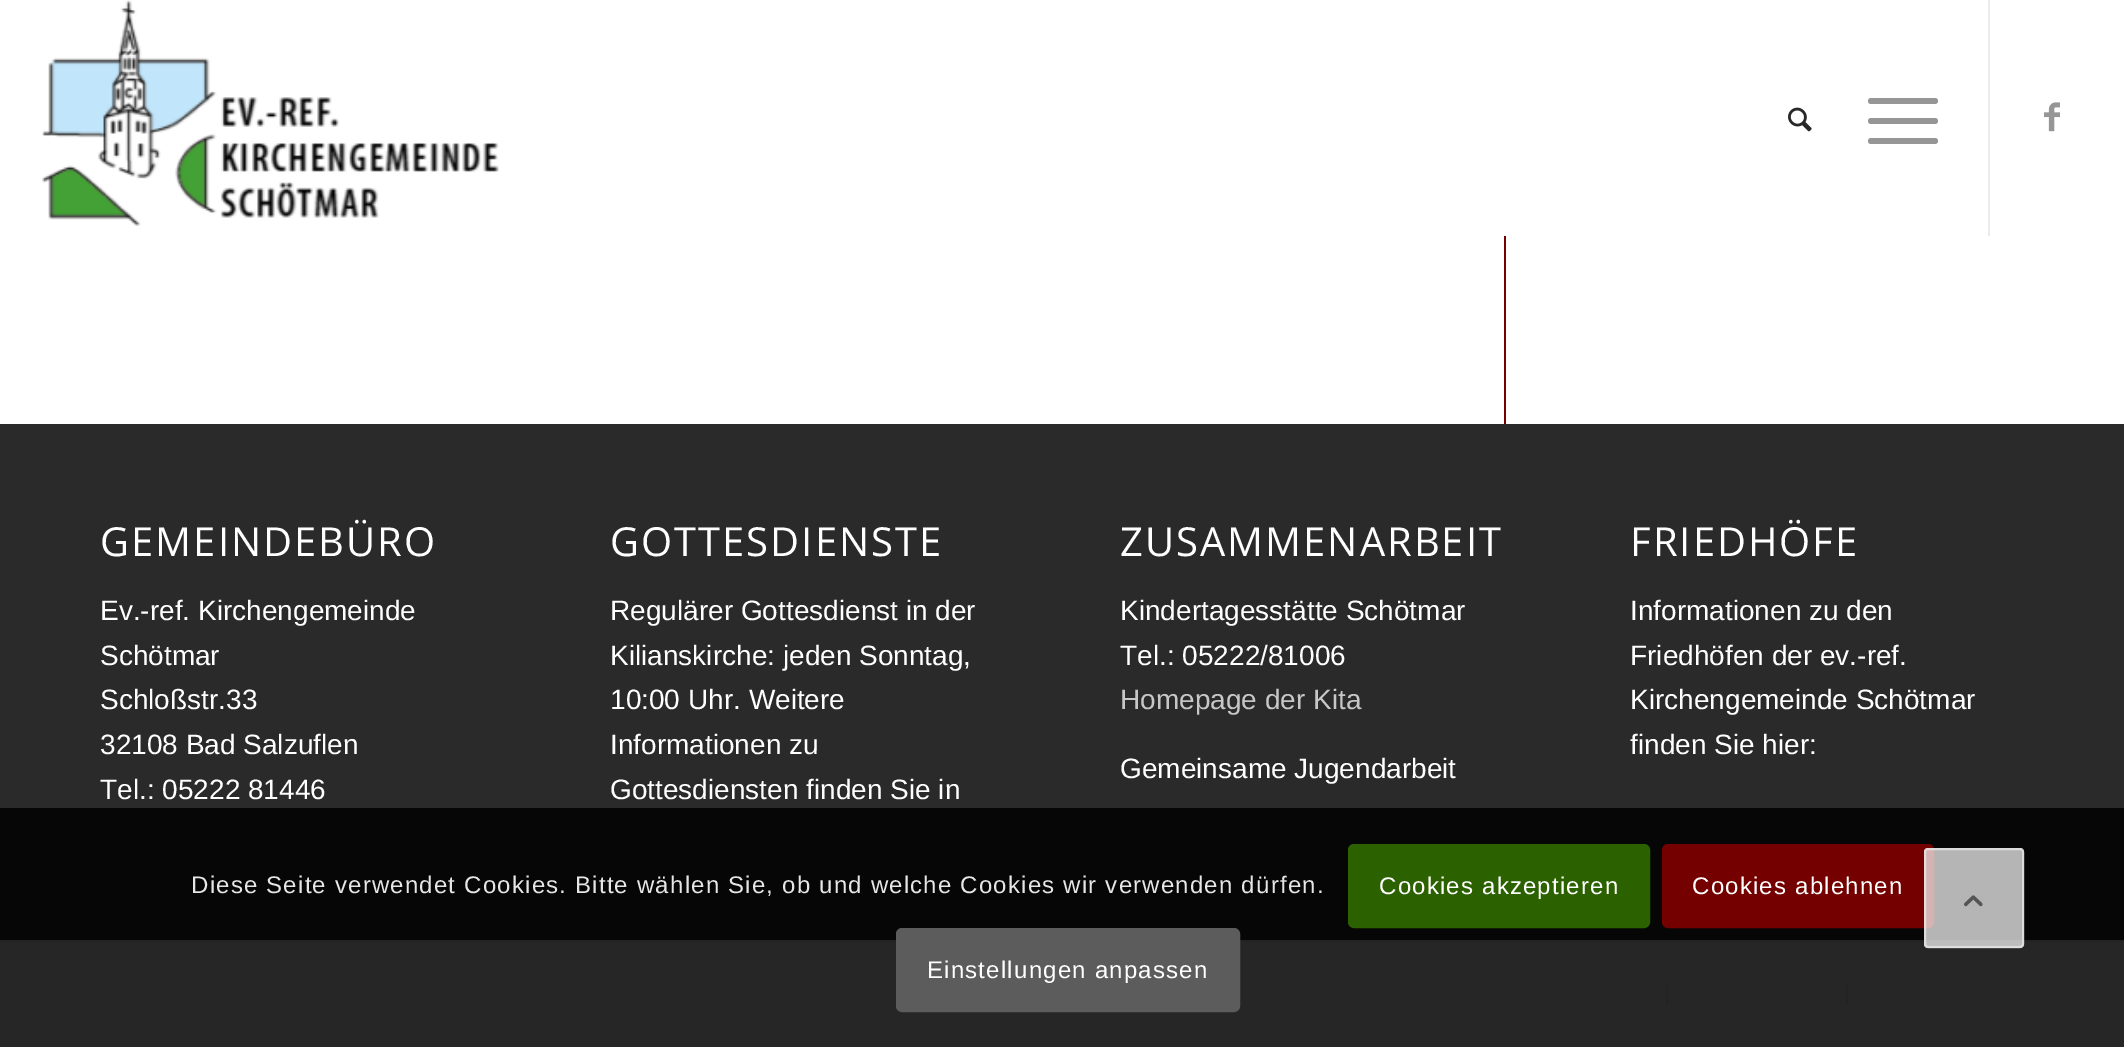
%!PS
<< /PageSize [2124 1047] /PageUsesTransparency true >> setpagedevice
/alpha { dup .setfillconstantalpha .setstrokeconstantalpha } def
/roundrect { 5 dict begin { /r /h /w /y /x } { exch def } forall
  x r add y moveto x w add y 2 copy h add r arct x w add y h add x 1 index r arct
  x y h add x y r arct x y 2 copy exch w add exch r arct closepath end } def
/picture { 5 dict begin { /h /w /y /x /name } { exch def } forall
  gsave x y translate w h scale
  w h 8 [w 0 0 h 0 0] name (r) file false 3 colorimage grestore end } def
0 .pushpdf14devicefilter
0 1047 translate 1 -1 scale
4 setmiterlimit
1 setgray
0 0 2124 1047 rectfill
(img1.rgb) 42 0 457 226 picture
0.922 setgray
1988 0 2 236 rectfill
(img2.rgb) 1788 107 24 25 picture
0.588 setgray
1868 118 70 6 3 roundrect fill
1868 98 70 6 3 roundrect fill
1868 138 70 6 3 roundrect fill
(img3.rgb) 2044 102 16 30 picture
0.459 0 0 setrgbcolor
1504 236 2 188 rectfill
0.169 0.165 0.169 setrgbcolor
0 424 2124 516 rectfill
/OpenSans-Regular [40 0 0 -40 0 0] selectfont
1 setgray
100 556 moveto 2 0 (GEMEINDEBÜRO) ashow
/LiberationSans-Regular [28 0 0 -28 0 0] selectfont
100 620 moveto (Ev.-ref. Kirchengemeinde) show
100 665 moveto (Schötmar) show
100 709 moveto (Schloßstr.33) show
100 754 moveto (32108 Bad Salzuflen) show
100 799 moveto (Tel.: 05222 81446) show
/OpenSans-Regular [40 0 0 -40 0 0] selectfont
610 556 moveto 2 0 (GOTTESDIENSTE) ashow
/LiberationSans-Regular [28 0 0 -28 0 0] selectfont
610 620 moveto (Regulärer Gottesdienst in der) show
610 665 moveto (Kilianskirche: jeden Sonntag,) show
610 709 moveto (10:00 Uhr. Weitere) show
610 754 moveto (Informationen zu) show
610 799 moveto (Gottesdiensten finden Sie in) show
/OpenSans-Regular [40 0 0 -40 0 0] selectfont
1120 556 moveto 2 0 (ZUSAMMENARBEIT) ashow
/LiberationSans-Regular [28 0 0 -28 0 0] selectfont
1120 620 moveto (Kindertagesstätte Schötmar) show
1120 665 moveto (Tel.: 05222/81006) show
0.78 setgray
1120 709 moveto (Homepage der Kita) show
1 setgray
1120 778 moveto (Gemeinsame Jugendarbeit) show
/OpenSans-Regular [40 0 0 -40 0 0] selectfont
1630 556 moveto 2 0 (FRIEDHÖFE) ashow
/LiberationSans-Regular [28 0 0 -28 0 0] selectfont
1630 620 moveto (Informationen zu den) show
1630 665 moveto (Friedhöfen der ev.-ref.) show
1630 709 moveto (Kirchengemeinde Schötmar) show
1630 754 moveto (finden Sie hier:) show
0.922 setgray
0 940 2124 2 rectfill
1666 984 2 20 rectfill
1846 984 2 20 rectfill
0.85 alpha
0 setgray
0 808 2124 239 rectfill
/LiberationSans-Regular [24 0 0 -24 0 0] selectfont
1 alpha
0.902 setgray
191 893 moveto 1.2 0 (Diese Seite verwendet Cookies. Bitte wählen Sie, ob und welche Cookies wir verwenden dürfen.) ashow
0.173 0.38 0 setrgbcolor
1350 846 298 80 4 roundrect gsave fill grestore
4 setlinewidth
stroke
1 setgray
1379 894 moveto 1.2 0 (Cookies akzeptieren) ashow
0.459 0 0 setrgbcolor
1664 846 268 80 4 roundrect gsave fill grestore
stroke
1 setgray
1692 894 moveto 1.2 0 (Cookies ablehnen) ashow
0.361 setgray
898 930 340 80 4 roundrect gsave fill grestore
stroke
1 setgray
927 978 moveto 1.2 0 (Einstellungen anpassen) ashow
0.7 alpha
1924 848 100 100 4 roundrect fill
0.922 setgray
2 setlinewidth
1925 849 98 98 3 roundrect stroke
1 alpha
(img4.rgb) 1964 895 19 12 picture
.poppdf14devicefilter showpage
